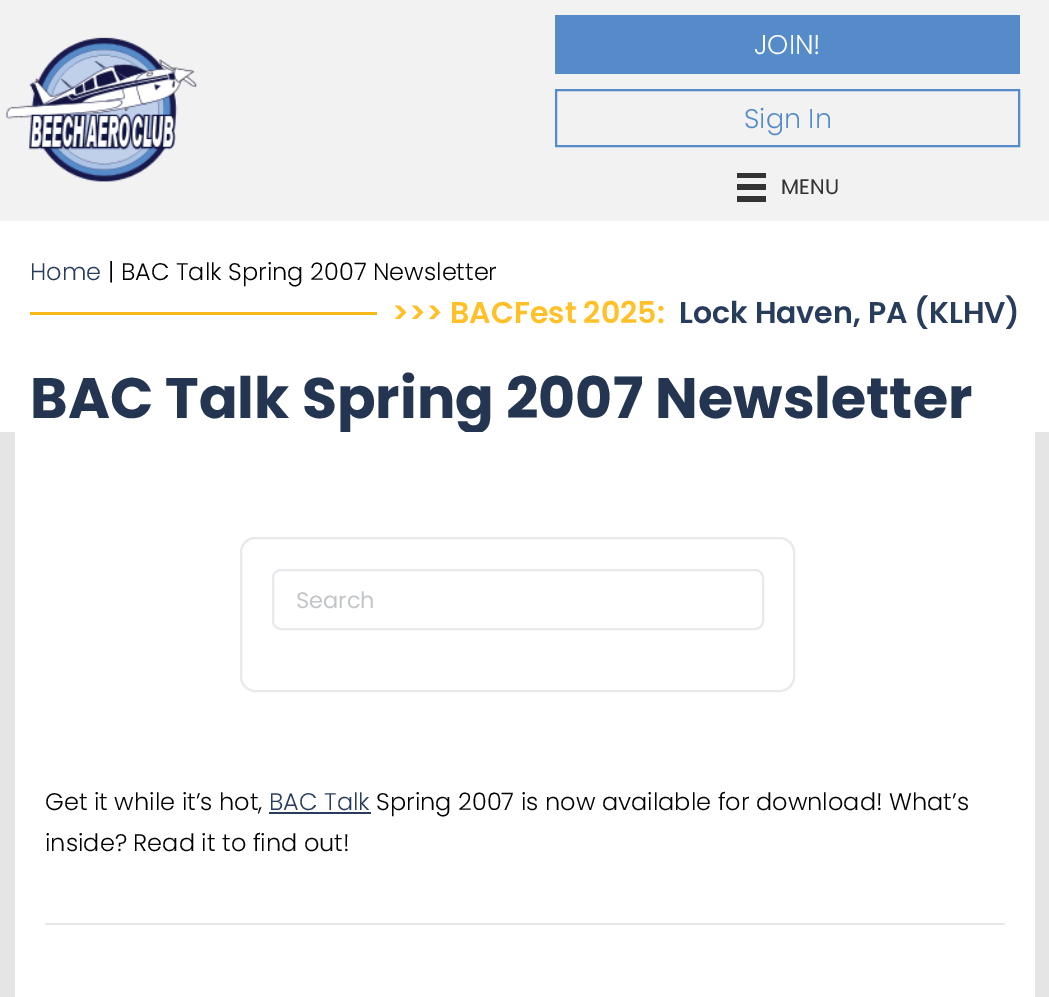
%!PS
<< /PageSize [1049 997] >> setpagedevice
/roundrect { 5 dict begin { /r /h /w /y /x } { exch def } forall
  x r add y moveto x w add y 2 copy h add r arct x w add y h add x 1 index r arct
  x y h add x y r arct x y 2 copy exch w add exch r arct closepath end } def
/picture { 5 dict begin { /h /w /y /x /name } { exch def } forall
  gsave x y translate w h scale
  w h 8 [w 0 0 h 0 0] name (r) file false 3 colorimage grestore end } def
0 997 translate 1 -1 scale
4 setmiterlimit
0.898 setgray
0 0 1049 997 rectfill
0.949 setgray
0 0 1049 221 rectfill
1 setgray
0 221 1049 211 rectfill
(img1.rgb) 6 37 191 145 picture
0.337 0.545 0.788 setrgbcolor
555 15 465 59 rectfill
/Poppins-Light [27 0 0 -27 0 0] selectfont
1 setgray
754 54 moveto (JOIN!) show
0.337 0.545 0.788 setrgbcolor
2 setlinewidth
556 90 463 56 rectstroke
744 128 moveto (Sign In) show
0.2 setgray
737 173 29 5 rectfill
737 184 29 6 rectfill
737 196 29 6 rectfill
/Poppins-Regular [21 0 0 -21 0 0] selectfont
781 194 moveto (MENU) show
/Poppins-Light [24 0 0 -24 0 0] selectfont
0.157 0.235 0.361 setrgbcolor
30 280 moveto (Home) show
0.004 setgray
108 280 moveto (| BAC Talk Spring 2007 Newsletter) show
0.969 0.725 0.102 setrgbcolor
30 312 347 3 rectfill
/Poppins-SemiBold [30 0 0 -30 0 0] selectfont
1 0.753 0.157 setrgbcolor
392 323 moveto (>>> BACFest 2025:) show
0.157 0.235 0.361 setrgbcolor
679 323 moveto (Lock Haven, PA \(KLHV\)) show
/Poppins-Bold [57 0 0 -57 0 0] selectfont
0.137 0.208 0.318 setrgbcolor
30 418 moveto (BAC Talk Spring 2007 Newsletter) show
1 setgray
15 432 1020 565 rectfill
0.906 0.914 0.925 setrgbcolor
241 538 553 153 14 roundrect stroke
273 570 490 59 8 roundrect stroke
/Poppins-Regular [22.5 0 0 -22.5 0 0] selectfont
0.765 0.776 0.788 setrgbcolor
296 608 moveto (Search) show
/Poppins-Light [24 0 0 -24 0 0] selectfont
0.004 setgray
45 810 moveto (Get it while it’s hot,) show
0.157 0.235 0.361 setrgbcolor
269 810 moveto (BAC Talk) show
269 812 102 2 rectfill
0.004 setgray
376 810 moveto (Spring 2007 is now available for download! What’s) show
45 851 moveto (inside? Read it to find out!) show
0.91 setgray
45 923 960 2 rectfill
showpage
